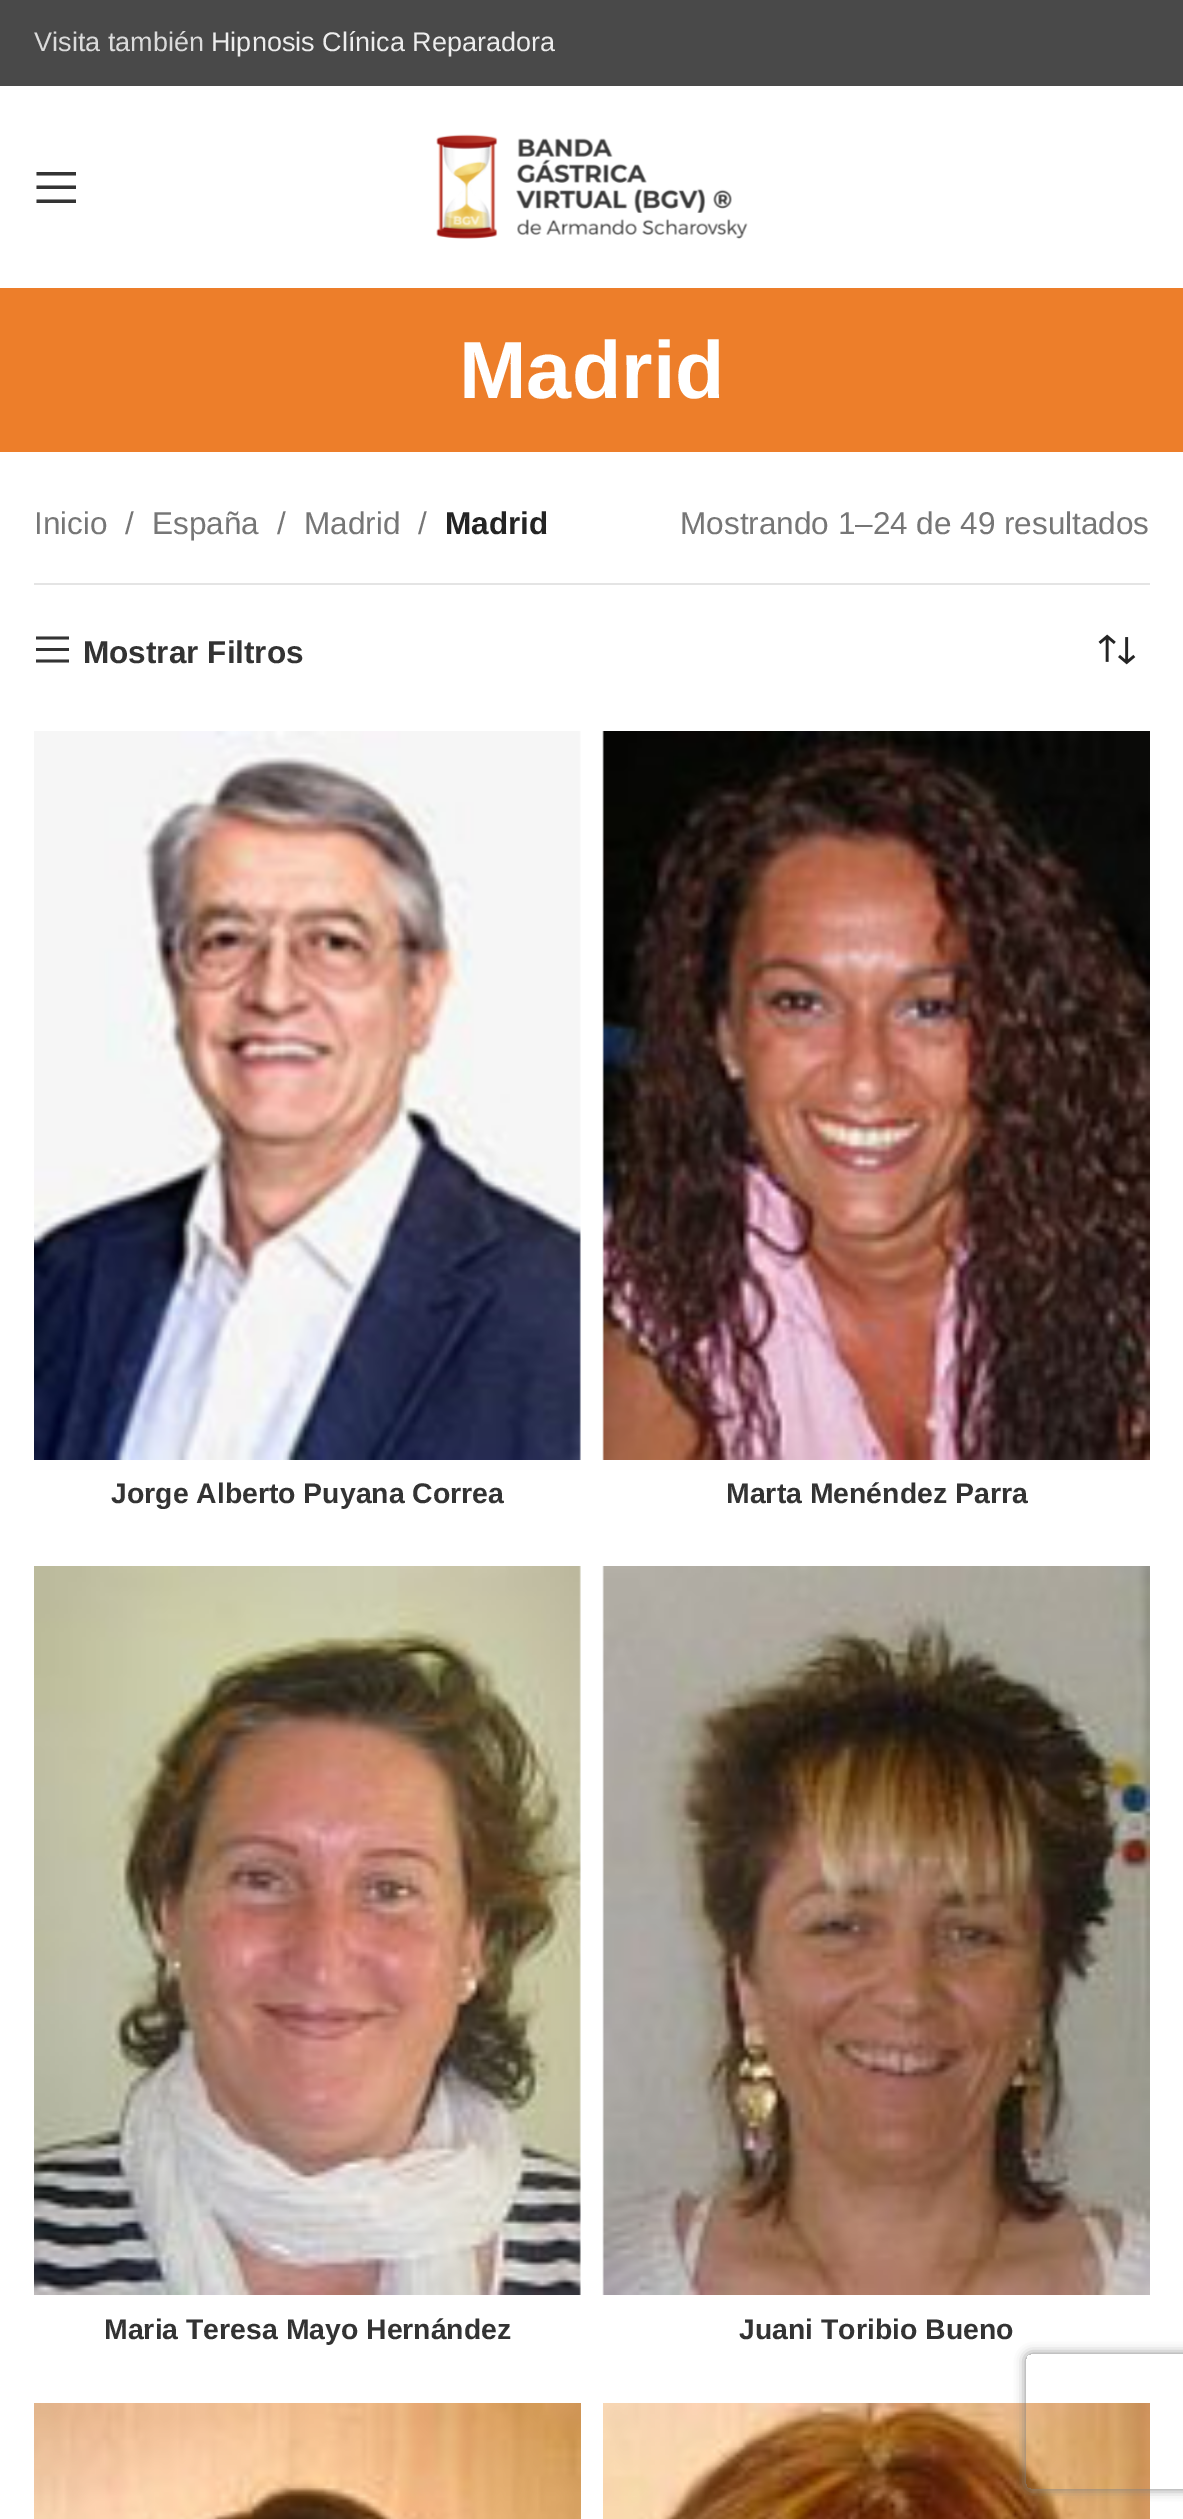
%!PS
<< /PageSize [1183 2519] /PageUsesTransparency true >> setpagedevice
/alpha { dup .setfillconstantalpha .setstrokeconstantalpha } def
/roundrect { 5 dict begin { /r /h /w /y /x } { exch def } forall
  x r add y moveto x w add y 2 copy h add r arct x w add y h add x 1 index r arct
  x y h add x y r arct x y 2 copy exch w add exch r arct closepath end } def
/shadow { 12 dict begin { /a /b /q /h /w /y /x } { exch def } forall gsave /was 0 def
  9 -2 -9 { dup b mul 4 div /e exch def 1 sub .425 mul 2.718 exch exp 1 add a .99 .min exch div /now exch def
    1 1 now sub 1 was sub div sub alpha /was now def
    w h .min e 2 mul add 0 gt { x e sub y e sub w e 2 mul add h e 2 mul add
      q e add b .6 mul add w h .min 2 div e add .min 0 .max roundrect fill } if } for grestore end } def
/picture { 5 dict begin { /h /w /y /x /name } { exch def } forall
  gsave x y translate w h scale
  w h 8 [w 0 0 h 0 0] name (r) file false 3 colorimage grestore end } def
0 .pushpdf14devicefilter
0 2519 translate 1 -1 scale
4 setmiterlimit
1 setgray
0 0 1183 2519 rectfill
0.286 setgray
0 0 1183 86 rectfill
/LiberationSans-Regular [27 0 0 -27 0 0] selectfont
0.859 setgray
34 51 moveto (Visita también) show
0.929 setgray
211 51 moveto (Hipnosis Clínica Reparadora) show
0.2 setgray
newpath 36.5 175.5 moveto 76 175.5 lineto 76 172 lineto 36.5 172 lineto closepath 36.5 189 moveto 76 189 lineto 76 185.5 lineto 36.5 185.5 lineto closepath 36.5 203 moveto 76 203 lineto 76 199.5 lineto 36.5 199.5 lineto closepath fill
(img1.rgb) 436 134 312 105 picture
0.929 0.494 0.165 setrgbcolor
0 288 1183 164 rectfill
/LiberationSans-Bold [81 0 0 -81 0 0] selectfont
1 setgray
459 398 moveto (Madrid) show
0.894 setgray
34 583 1116 2 rectfill
/LiberationSans-Regular [31.5 0 0 -31.5 0 0] selectfont
0.463 setgray
34 534 moveto (Inicio) show
125 534 moveto (/) show
152 534 moveto (España) show
277 534 moveto (/) show
304 534 moveto (Madrid) show
418 534 moveto (/) show
/LiberationSans-Bold [31.5 0 0 -31.5 0 0] selectfont
0.141 setgray
445 534 moveto (Madrid) show
/LiberationSans-Regular [31.5 0 0 -31.5 0 0] selectfont
0.463 setgray
680 534 moveto (Mostrando 1–24 de 49 resultados) show
0.2 setgray
newpath 36 639.5 moveto 69 639.5 lineto 69 636.5 lineto 36 636.5 lineto closepath 36 651 moveto 69 651 lineto 69 648 lineto 36 648 lineto closepath 36 662.5 moveto 69 662.5 lineto 69 659.5 lineto 36 659.5 lineto closepath fill
/LiberationSans-Bold [31.5 0 0 -31.5 0 0] selectfont
83 663 moveto (Mostrar Filtros) show
(img2.rgb) 1098 634 38 31 picture
(img3.rgb) 34 731 547 729 picture
/LiberationSans-Bold [28.4 0 0 -28.4 0 0] selectfont
111 1503 moveto (Jorge Alberto Puyana Correa) show
(img4.rgb) 602 731 548 729 picture
726 1503 moveto (Marta Menéndez Parra) show
(img5.rgb) 34 1566 547 729 picture
104 2339 moveto (Maria Teresa Mayo Hernández) show
(img6.rgb) 602 1566 548 729 picture
739 2339 moveto (Juani Toribio Bueno) show
(img7.rgb) 34 2403 547 116 picture
(img8.rgb) 603 2403 547 116 picture
gsave
newpath 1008 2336 moveto 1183 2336 lineto 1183 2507 lineto 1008 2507 lineto closepath 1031 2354 moveto 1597 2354 lineto 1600 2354 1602 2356 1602 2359 curveto 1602 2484 lineto 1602 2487 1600 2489 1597 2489 curveto 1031 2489 lineto 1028 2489 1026 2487 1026 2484 curveto 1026 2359 lineto 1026 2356 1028 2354 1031 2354 curveto closepath eoclip newpath
0.502 setgray
1026 2354 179 135 5 5.5 1 shadow
grestore
.poppdf14devicefilter showpage
